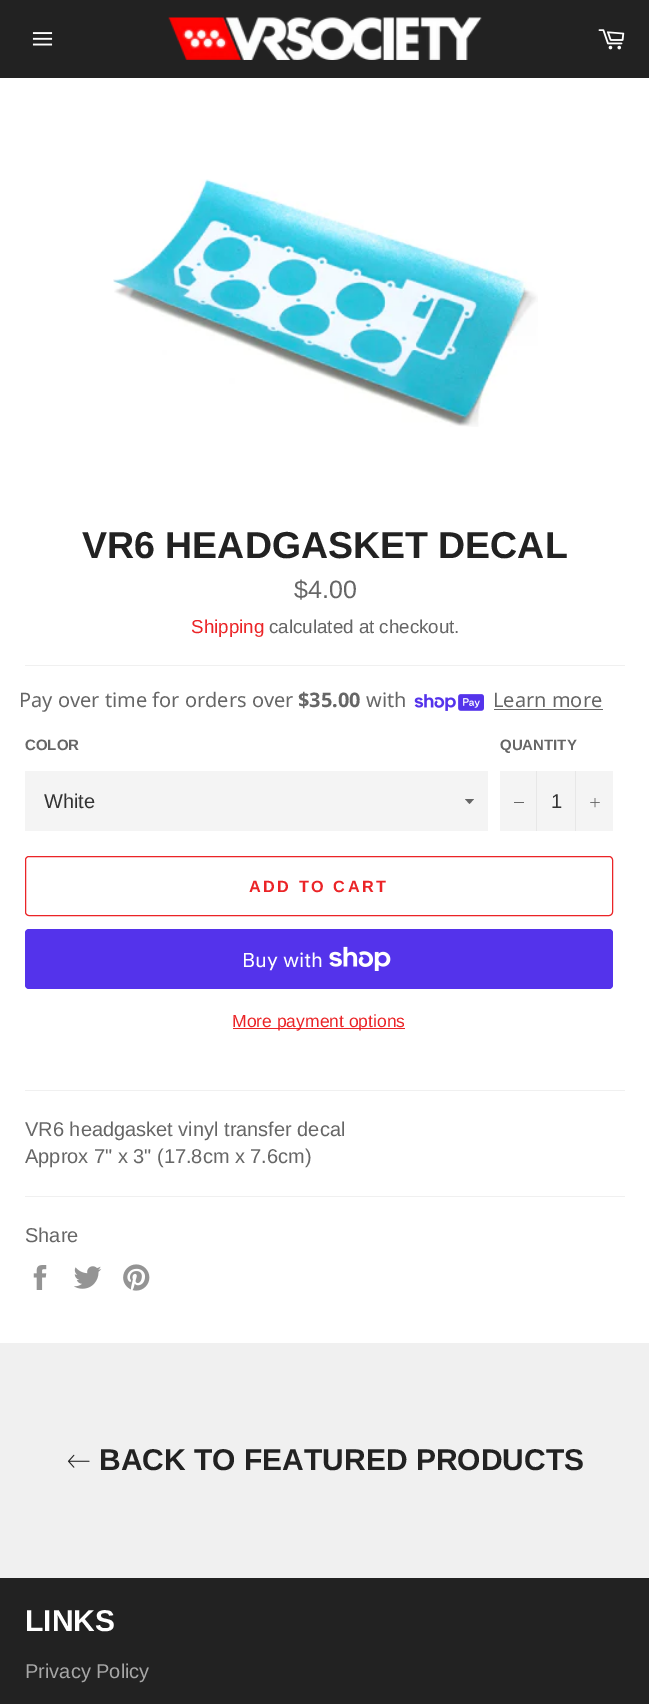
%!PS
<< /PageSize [649 1704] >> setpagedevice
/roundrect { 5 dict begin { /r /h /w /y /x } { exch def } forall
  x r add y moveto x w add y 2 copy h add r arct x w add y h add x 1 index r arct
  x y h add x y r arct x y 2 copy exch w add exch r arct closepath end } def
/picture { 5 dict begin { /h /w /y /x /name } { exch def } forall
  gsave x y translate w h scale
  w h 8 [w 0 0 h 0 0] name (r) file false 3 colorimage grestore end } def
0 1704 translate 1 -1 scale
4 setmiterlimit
1 setgray
0 0 649 1704 rectfill
0.133 setgray
0 0 649 78 rectfill
(img1.rgb) 32 32 21 14 picture
(img2.rgb) 168 17 314 43 picture
(img3.rgb) 598 29 27 21 picture
(img4.rgb) 113 179 425 248 picture
/LiberationSans-Bold [37.5 0 0 -37.5 0 0] selectfont
82 558 moveto (VR6 HEADGASKET DECAL) show
/LiberationSans-Regular [25 0 0 -25 0 0] selectfont
0.4 setgray
294 598 moveto ($4.00) show
/LiberationSans-Regular [18.75 0 0 -18.75 0 0] selectfont
0.922 0.141 0.153 setrgbcolor
191 633 moveto (Shipping) show
0.4 setgray
269 633 moveto (calculated at checkout.) show
0.941 setgray
25 665 600 1 rectfill
/NotoSans-Regular [20 0 0 -20 0 0] selectfont
0.4 setgray
19 707 moveto (Pay over time for orders over) show
/NotoSans-Bold [20 0 0 -20 0 0] selectfont
298 707 moveto ($35.00) show
/NotoSans-Regular [20 0 0 -20 0 0] selectfont
366 707 moveto (with) show
(img5.rgb) 414 694 70 17 picture
493 707 moveto (Learn more) show
494 709 109 1 rectfill
/LiberationSans-Bold [15 0 0 -15 0 0] selectfont
25 750 moveto (COLOR) show
0.957 setgray
25 771 463 60 rectfill
0.4 setgray
newpath 465 799 moveto 469.5 804 lineto 474 799 lineto closepath fill
/LiberationSans-Regular [20 0 0 -20 0 0] selectfont
0.2 setgray
44 808 moveto (White) show
/LiberationSans-Bold [15 0 0 -15 0 0] selectfont
0.4 setgray
500 750 moveto (QUANTITY) show
0.957 setgray
500 771 113 60 rectfill
0.906 setgray
536 771 1 60 rectfill
0.4 setgray
514 802 10 1 rectfill
/LiberationSans-Regular [20 0 0 -20 0 0] selectfont
0.2 setgray
551 808 moveto (1) show
0.906 setgray
575 771 1 60 rectfill
(img6.rgb) 590 798 10 10 picture
0.922 0.141 0.153 setrgbcolor
25.5 856.5 587 59 3.5 roundrect stroke
/LiberationSans-Bold [16.25 0 0 -16.25 0 0] selectfont
249 892 moveto 2.5 0 (ADD TO CART) ashow
0.329 0.2 0.922 setrgbcolor
25 929 588 60 4 roundrect fill
/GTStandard-Regular [20 0 0 -20 0 0] selectfont
1 setgray
242 967 moveto (Buy with) show
(img7.rgb) 329 946 62 25 picture
0.922 0.141 0.153 setrgbcolor
233 1028 172 1 rectfill
/LiberationSans-Regular [17.5 0 0 -17.5 0 0] selectfont
232 1027 moveto (More payment options) show
0.941 setgray
25 1090 600 1 rectfill
/LiberationSans-Regular [20 0 0 -20 0 0] selectfont
0.4 setgray
25 1136 moveto (VR6 headgasket vinyl transfer decal) show
25 1163 moveto (Approx 7" x 3" \(17.8cm x 7.6cm\)) show
0.941 setgray
25 1196 600 1 rectfill
0.4 setgray
25 1242 moveto (Share) show
(img8.rgb) 33 1265 14 25 picture
(img9.rgb) 74 1266 28 23 picture
(img10.rgb) 123 1264 27 27 picture
0.941 setgray
0 1343 649 235 rectfill
(img11.rgb) 67 1454 23 14 picture
/LiberationSans-Bold [30 0 0 -30 0 0] selectfont
0.133 setgray
99 1470 moveto (BACK TO FEATURED PRODUCTS) show
0 1578 649 126 rectfill
1 setgray
25 1631 moveto (LINKS) show
/LiberationSans-Regular [20 0 0 -20 0 0] selectfont
0.655 setgray
25 1678 moveto (Privacy Policy) show
showpage
